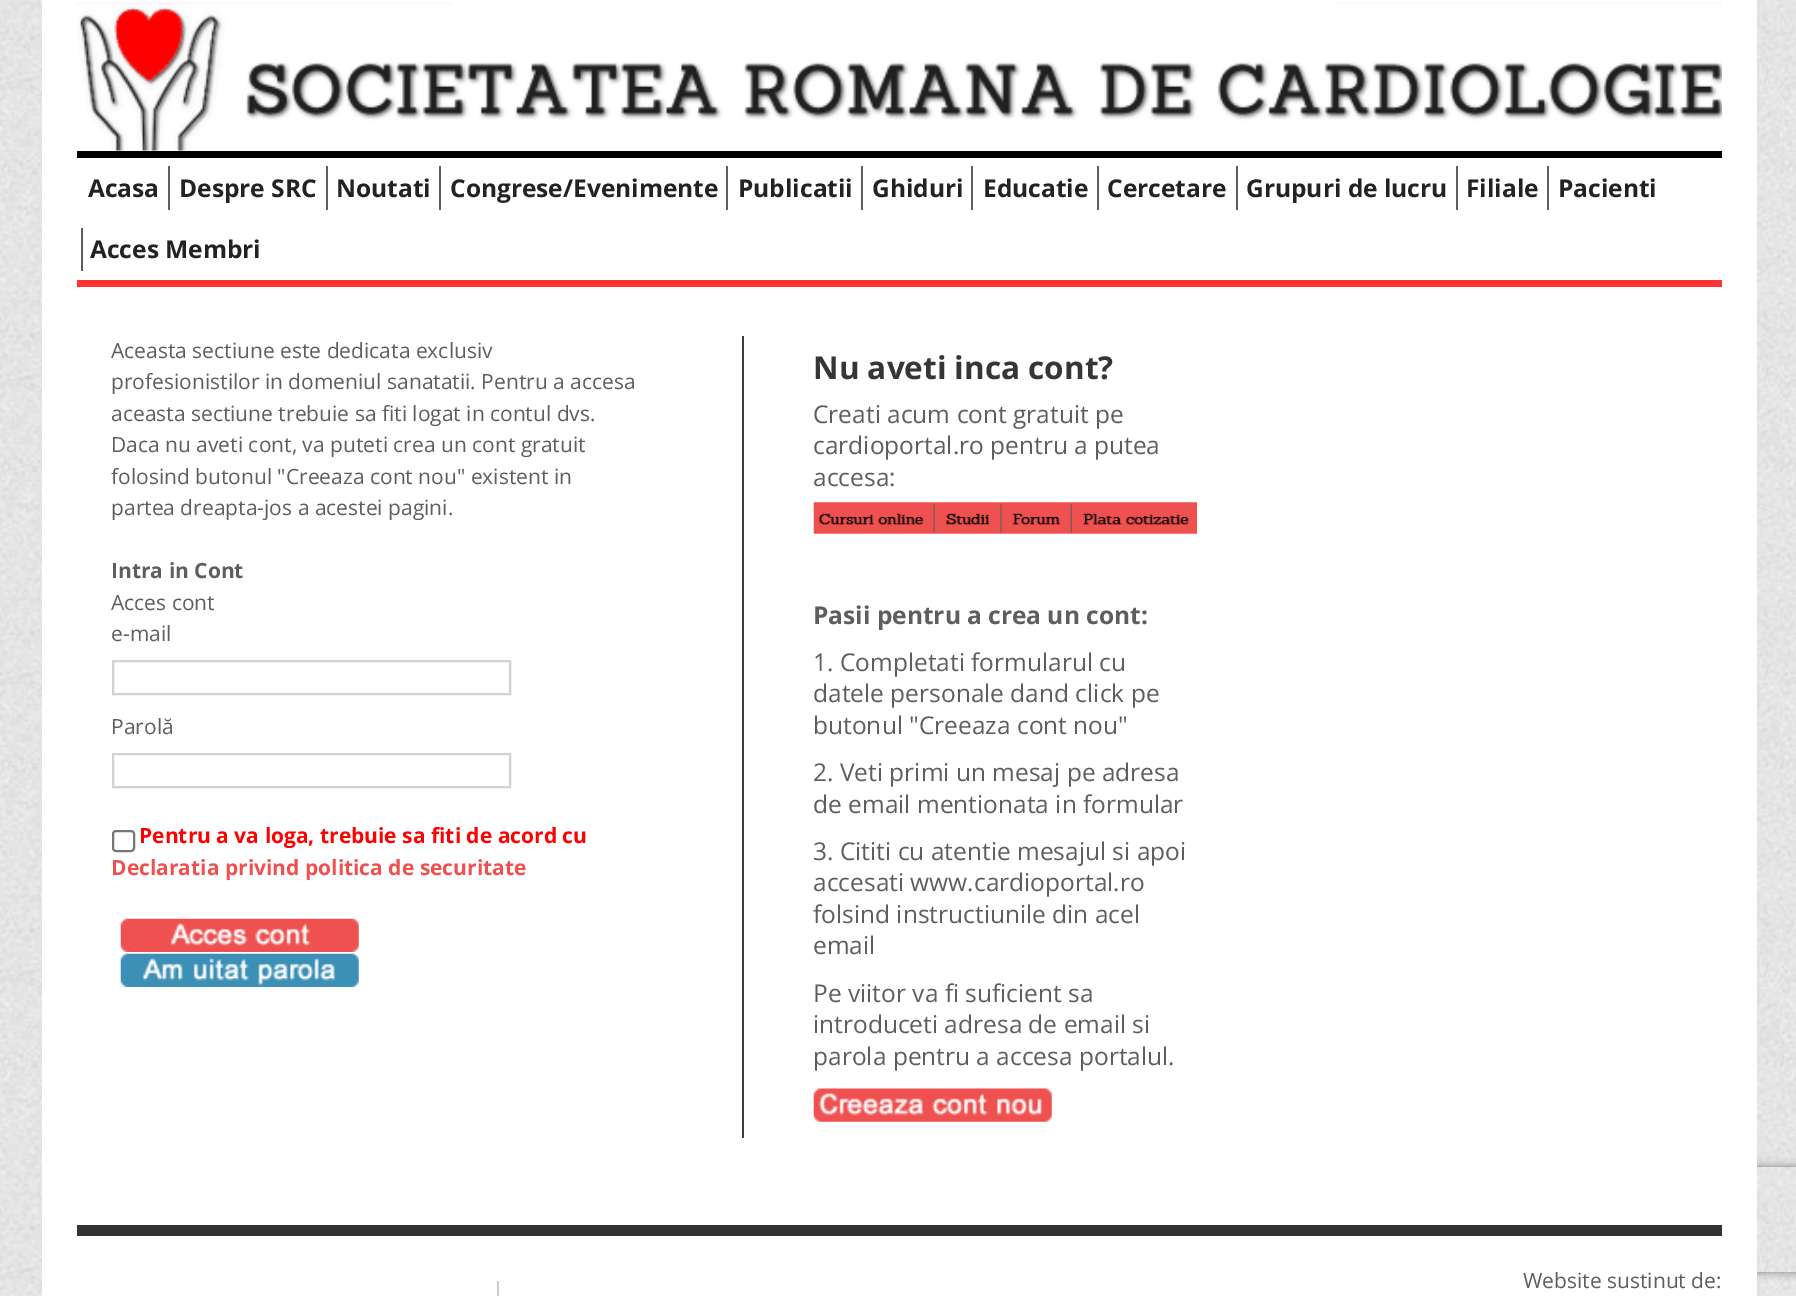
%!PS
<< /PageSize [1796 1296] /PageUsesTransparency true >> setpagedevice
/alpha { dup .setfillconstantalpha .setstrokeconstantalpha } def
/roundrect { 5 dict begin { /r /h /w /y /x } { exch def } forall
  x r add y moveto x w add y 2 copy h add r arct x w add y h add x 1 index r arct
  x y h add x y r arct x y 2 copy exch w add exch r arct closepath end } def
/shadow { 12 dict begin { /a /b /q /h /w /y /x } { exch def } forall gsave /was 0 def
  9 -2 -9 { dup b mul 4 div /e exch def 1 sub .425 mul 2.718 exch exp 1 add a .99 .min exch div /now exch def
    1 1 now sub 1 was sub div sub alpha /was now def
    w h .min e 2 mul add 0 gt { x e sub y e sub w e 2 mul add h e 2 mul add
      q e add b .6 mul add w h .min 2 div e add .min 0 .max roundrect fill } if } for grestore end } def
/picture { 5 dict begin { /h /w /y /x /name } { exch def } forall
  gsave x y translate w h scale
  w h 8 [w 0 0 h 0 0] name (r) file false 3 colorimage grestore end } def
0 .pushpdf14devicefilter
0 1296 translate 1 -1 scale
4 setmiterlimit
1 setgray
0 0 1796 1296 rectfill
(img1.rgb) 0 0 1796 1296 picture
gsave
newpath 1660 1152 moveto 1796 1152 lineto 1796 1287 lineto 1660 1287 lineto closepath 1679 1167 moveto 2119 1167 lineto 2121 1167 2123 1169 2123 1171 curveto 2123 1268 lineto 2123 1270 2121 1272 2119 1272 curveto 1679 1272 lineto 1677 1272 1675 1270 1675 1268 curveto 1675 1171 lineto 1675 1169 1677 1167 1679 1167 curveto closepath eoclip newpath
0.502 setgray
1675 1167 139 105 4 4.5 1 shadow
grestore
42 0 1715 1296 rectfill
0 setgray
77 151 1645 7 rectfill
(img2.rgb) 77 2 1645 149 picture
/OpenSans-Bold [24.5 0 0 -24.5 0 0] selectfont
0.133 setgray
88 197 moveto (Acasa) show
0.369 setgray
168 166 2 44 rectfill
0.133 setgray
179 197 moveto (Despre SRC) show
0.369 setgray
326 166 2 44 rectfill
0.133 setgray
336 197 moveto (Noutati) show
0.369 setgray
439 166 2 44 rectfill
0.133 setgray
450 197 moveto (Congrese/Evenimente) show
0.369 setgray
726 166 2 44 rectfill
0.133 setgray
738 197 moveto (Publicatii) show
0.369 setgray
861 166 2 44 rectfill
0.133 setgray
872 197 moveto (Ghiduri) show
0.369 setgray
971 166 2 44 rectfill
0.133 setgray
983 197 moveto (Educatie) show
0.369 setgray
1097 166 2 44 rectfill
0.133 setgray
1107 197 moveto (Cercetare) show
0.369 setgray
1236 166 2 44 rectfill
0.133 setgray
1246 197 moveto (Grupuri de lucru) show
0.369 setgray
1456 166 2 44 rectfill
0.133 setgray
1466 197 moveto (Filiale) show
0.369 setgray
1547 166 2 44 rectfill
0.133 setgray
1558 197 moveto (Pacienti) show
0.369 setgray
81 228 2 43 rectfill
0.133 setgray
90 258 moveto (Acces Membri) show
1 0.2 0.2 setrgbcolor
77 280 1645 7 rectfill
/OpenSans-Regular [21 0 0 -21 0 0] selectfont
0.369 setgray
111 358 moveto (Aceasta sectiune este dedicata exclusiv) show
111 389 moveto (profesionistilor in domeniul sanatatii. Pentru a accesa) show
111 421 moveto (aceasta sectiune trebuie sa fiti logat in contul dvs.) show
111 452 moveto (Daca nu aveti cont, va puteti crea un cont gratuit) show
111 484 moveto (folosind butonul "Creeaza cont nou" existent in) show
111 515 moveto (partea dreapta-jos a acestei pagini.) show
/OpenSans-Bold [21 0 0 -21 0 0] selectfont
111 578 moveto (Intra in Cont) show
/OpenSans-Regular [21 0 0 -21 0 0] selectfont
111 610 moveto (Acces cont) show
111 641 moveto (e-mail) show
0.824 setgray
2 setlinewidth
113 661 397 33 rectstroke
0.369 setgray
111 734 moveto (Parolă) show
0.824 setgray
113 754 397 33 rectstroke
0.463 setgray
113 831 21 20 3 roundrect stroke
/OpenSans-Bold [21 0 0 -21 0 0] selectfont
1 0 0 setrgbcolor
139 843 moveto (Pentru a va loga, trebuie sa fiti de acord cu) show
0.937 0.318 0.314 setrgbcolor
111 875 moveto (Declaratia privind politica de securitate) show
(img3.rgb) 120 918 239 34 picture
(img4.rgb) 120 953 239 34 picture
0.243 setgray
742 336 2 802 rectfill
/OpenSans-Bold [31.5 0 0 -31.5 0 0] selectfont
0.212 setgray
813 379 moveto (Nu aveti inca cont?) show
/OpenSans-Regular [24.5 0 0 -24.5 0 0] selectfont
0.369 setgray
813 423 moveto (Creati acum cont gratuit pe) show
813 454 moveto (cardioportal.ro pentru a putea) show
813 486 moveto (accesa:) show
(img5.rgb) 813 502 384 32 picture
/OpenSans-Bold [24.5 0 0 -24.5 0 0] selectfont
813 624 moveto (Pasii pentru a crea un cont:) show
/OpenSans-Regular [24.5 0 0 -24.5 0 0] selectfont
813 671 moveto (1. Completati formularul cu) show
813 702 moveto (datele personale dand click pe) show
813 734 moveto (butonul "Creeaza cont nou") show
813 781 moveto (2. Veti primi un mesaj pe adresa) show
813 813 moveto (de email mentionata in formular) show
813 860 moveto (3. Cititi cu atentie mesajul si apoi) show
813 891 moveto (accesati www.cardioportal.ro) show
813 923 moveto (folsind instructiunile din acel) show
813 954 moveto (email) show
813 1002 moveto (Pe viitor va fi suficient sa) show
813 1033 moveto (introduceti adresa de email si) show
813 1065 moveto (parola pentru a accesa portalul.) show
(img6.rgb) 813 1088 239 34 picture
0.2 setgray
77 1225 1645 11 rectfill
0.8 setgray
497 1281 2 15 rectfill
/OpenSans-Regular [21 0 0 -21 0 0] selectfont
0.369 setgray
1523 1288 moveto (Website sustinut de:) show
.poppdf14devicefilter showpage
